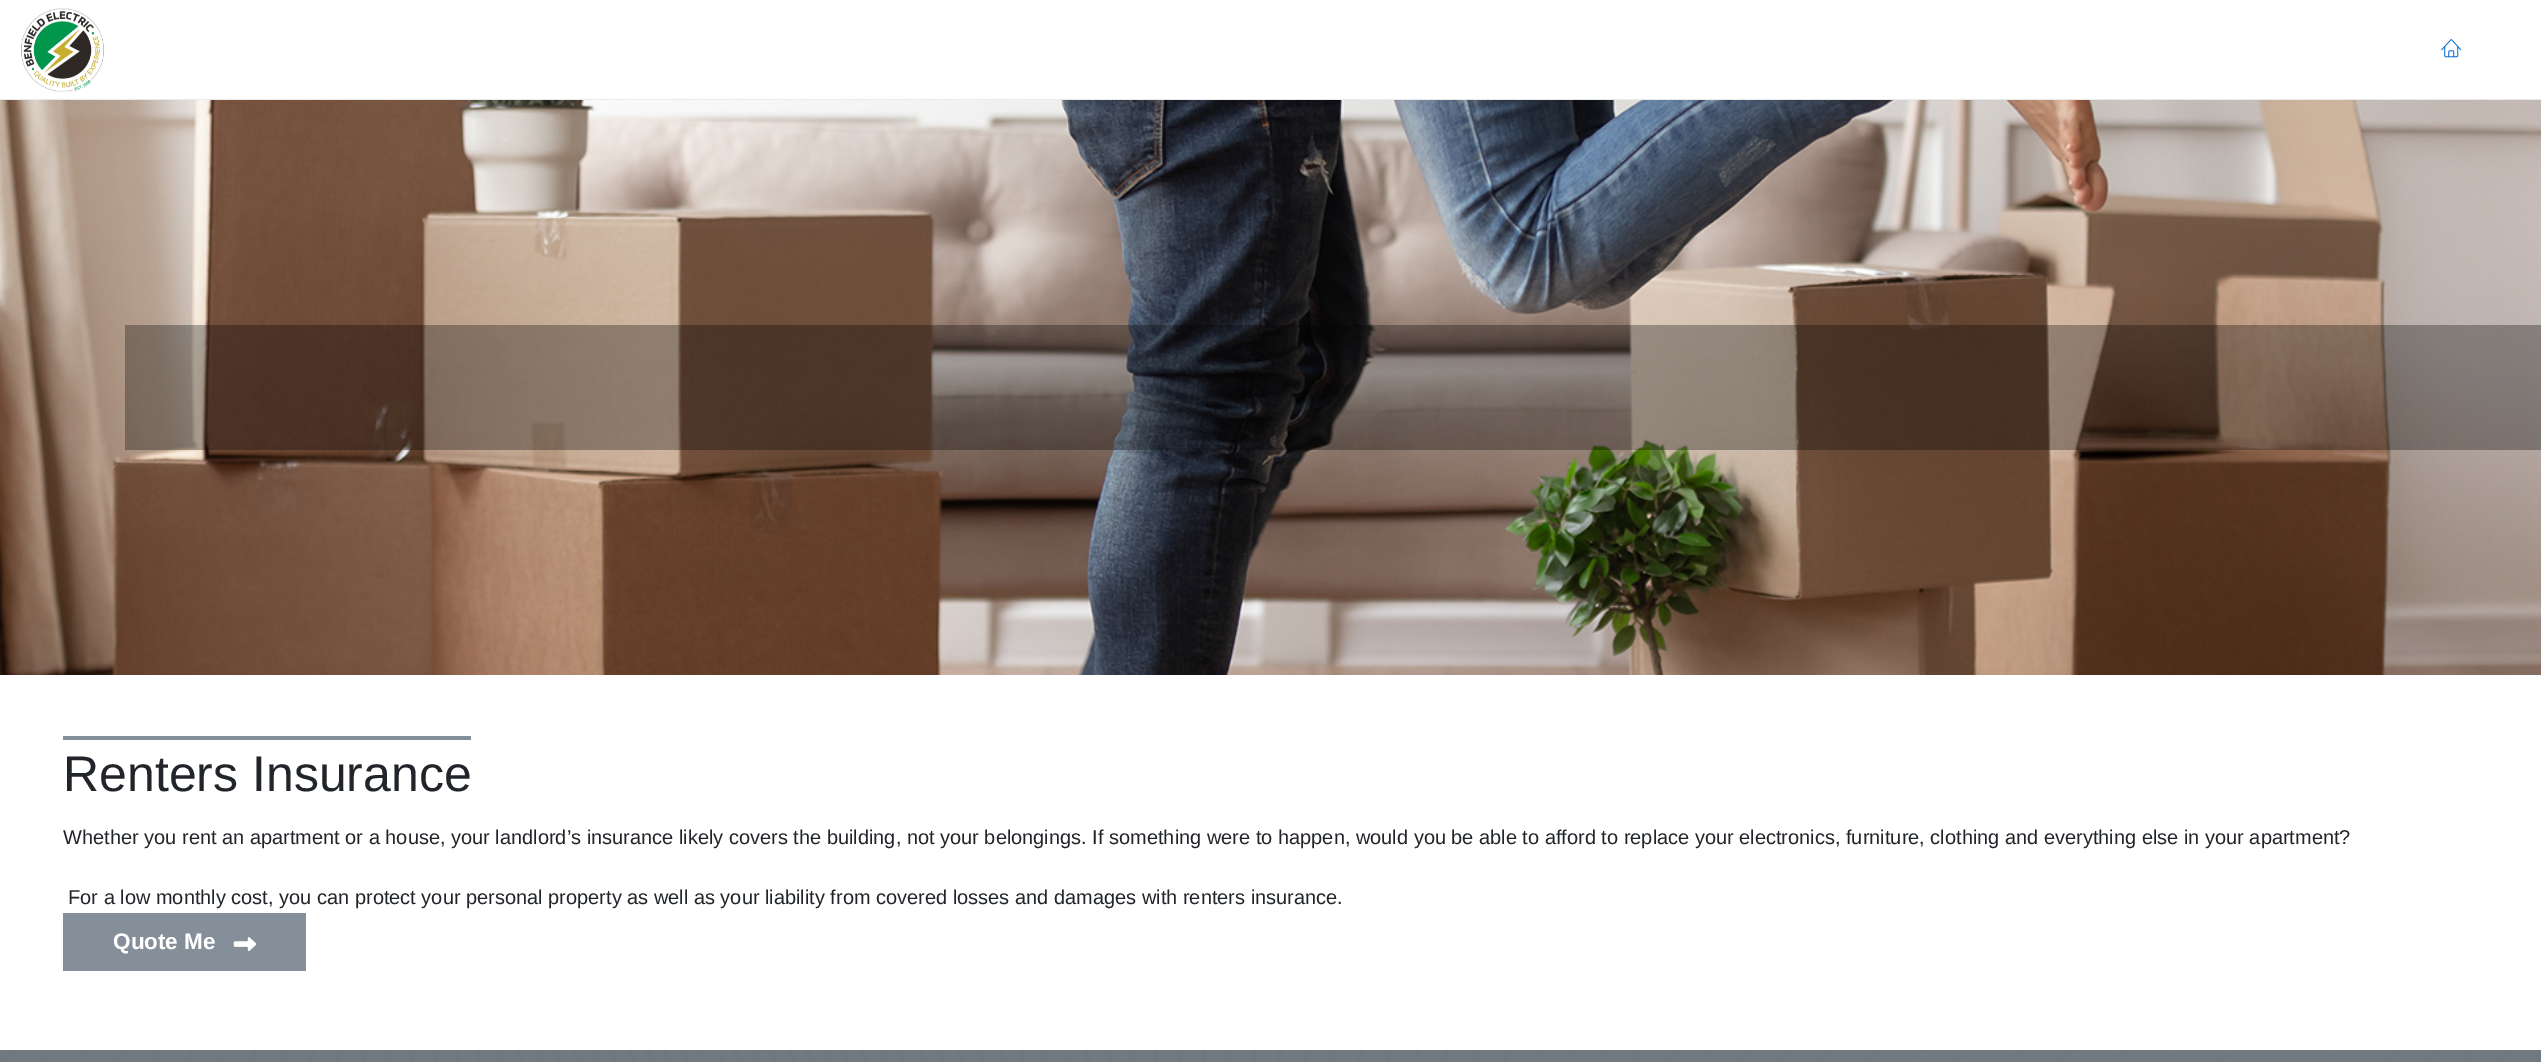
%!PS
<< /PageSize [2541 1062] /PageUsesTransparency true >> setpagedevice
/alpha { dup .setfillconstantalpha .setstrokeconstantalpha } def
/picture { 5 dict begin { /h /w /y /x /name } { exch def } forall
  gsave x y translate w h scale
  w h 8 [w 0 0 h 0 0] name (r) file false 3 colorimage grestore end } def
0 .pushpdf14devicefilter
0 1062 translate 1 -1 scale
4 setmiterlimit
1 setgray
0 0 2541 1062 rectfill
0.918 setgray
0 99 2541 1 rectfill
(img1.rgb) 21 8 83 84 picture
(img2.rgb) 2441 39 21 19 picture
(img3.rgb) 0 100 2541 575 picture
0.3 alpha
0 setgray
125 325 2416 125 rectfill
1 alpha
0.522 0.561 0.6 setrgbcolor
63 736 408 4 rectfill
/LiberationSans-Regular [50 0 0 -50 0 0] selectfont
0.129 0.145 0.161 setrgbcolor
63 791 moveto (Renters Insurance) show
/LiberationSans-Regular [20 0 0 -20 0 0] selectfont
63 844 moveto (Whether you rent an apartment or a house, your landlord’s insurance likely covers the building, not your belongings. If something were to happen, would you be able to afford to replace your electronics, furniture, clothing and everything else in your apartment?) show
68 904 moveto (For a low monthly cost, you can protect your personal property as well as your liability from covered losses and damages with renters insurance.) show
0.522 0.561 0.6 setrgbcolor
63 913 243 58 rectfill
/LiberationSans-Bold [22.5 0 0 -22.5 0 0] selectfont
1 setgray
113 949 moveto (Quote Me) show
(img4.rgb) 233 937 24 14 picture
(img5.rgb) 0 1050 2541 12 picture
.poppdf14devicefilter showpage
